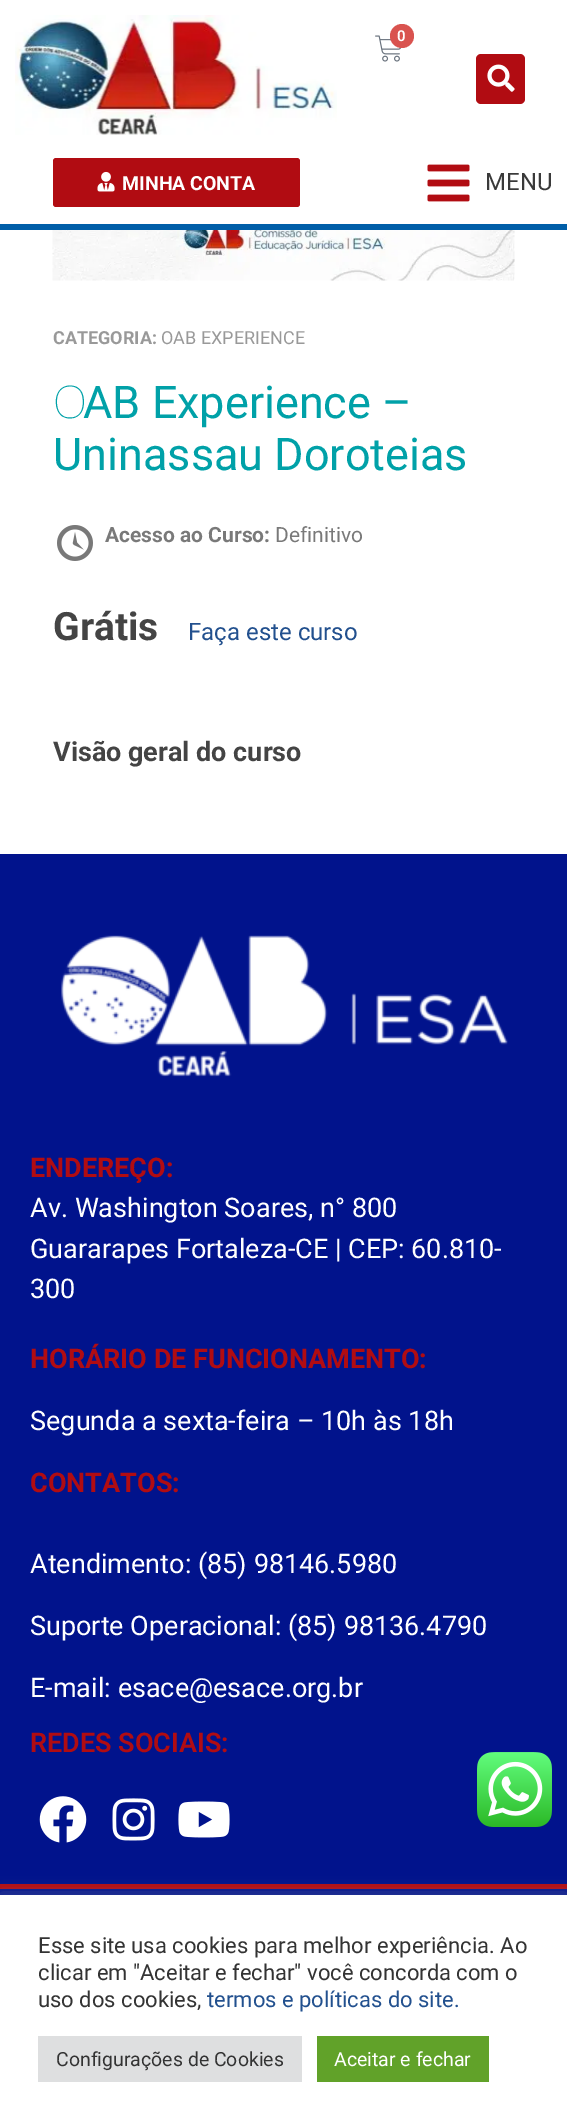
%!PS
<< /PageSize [567 2126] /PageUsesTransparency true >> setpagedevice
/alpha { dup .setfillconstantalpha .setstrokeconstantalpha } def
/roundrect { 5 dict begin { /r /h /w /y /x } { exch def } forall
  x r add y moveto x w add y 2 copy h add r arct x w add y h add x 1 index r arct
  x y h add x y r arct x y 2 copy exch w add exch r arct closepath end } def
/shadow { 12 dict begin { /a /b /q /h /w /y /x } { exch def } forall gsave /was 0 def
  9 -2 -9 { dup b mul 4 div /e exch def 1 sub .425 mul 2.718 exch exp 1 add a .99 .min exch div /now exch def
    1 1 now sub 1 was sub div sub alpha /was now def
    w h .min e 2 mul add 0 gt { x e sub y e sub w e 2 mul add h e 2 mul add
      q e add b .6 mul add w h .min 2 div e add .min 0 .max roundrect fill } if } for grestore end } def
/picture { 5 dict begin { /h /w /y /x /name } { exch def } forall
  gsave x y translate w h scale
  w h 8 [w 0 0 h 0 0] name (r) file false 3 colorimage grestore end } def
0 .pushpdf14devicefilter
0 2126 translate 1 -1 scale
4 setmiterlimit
1 setgray
0 0 567 2126 rectfill
0 0.369 0.659 setrgbcolor
0 224 567 6 rectfill
(img1.rgb) 15 15 322 120 picture
(img2.rgb) 375 35 27 27 picture
0.851 0.325 0.31 setrgbcolor
newpath 402 36 12 0 360 arc closepath fill
/Roboto-SemiBold [15 0 0 -15 0 0] selectfont
1 setgray
397 41 moveto (0) show
0.694 0.047 0.071 setrgbcolor
476 54 49 50 5 roundrect fill
(img3.rgb) 487 64 28 28 picture
53 158 247 49 3 roundrect fill
(img4.rgb) 97 171 18 21 picture
/Roboto-Bold [19.5 0 0 -19.5 0 0] selectfont
1 setgray
122 190 moveto (MINHA CONTA) show
(img5.rgb) 427 164 43 38 picture
/Roboto-Regular [24 0 0 -24 0 0] selectfont
0.227 setgray
485 190 moveto (MENU) show
(img6.rgb) 52 230 463 51 picture
/Roboto-Bold [18 0 0 -18 0 0] selectfont
0.6 setgray
53 344 moveto (CATEGORIA:) show
/Roboto-Regular [18 0 0 -18 0 0] selectfont
161 344 moveto (OAB EXPERIENCE) show
/NotoSans-Thin [45 0 0 -45 0 0] selectfont
0 0.631 0.659 setrgbcolor
53 418 moveto (O) show
/Roboto-Regular [45 0 0 -45 0 0] selectfont
83 418 moveto (AB Experience –) show
53 470 moveto (Uninassau Doroteias) show
(img7.rgb) 57 525 36 36 picture
/Roboto-Bold [21 0 0 -21 0 0] selectfont
0.475 setgray
105 542 moveto (Acesso ao Curso:) show
/Roboto-Regular [21 0 0 -21 0 0] selectfont
275 542 moveto (Definitivo) show
/Roboto-Bold [39 0 0 -39 0 0] selectfont
0.267 setgray
53 640 moveto (Grátis) show
/Roboto-Regular [24 0 0 -24 0 0] selectfont
0.133 0.314 0.557 setrgbcolor
188 640 moveto (Faça este curso) show
/Roboto-Bold [27 0 0 -27 0 0] selectfont
0.267 setgray
53 761 moveto (Visão geral do curso) show
0.004 0.075 0.549 setrgbcolor
0 854 567 1030 rectfill
(img8.rgb) 61 935 447 142 picture
0.694 0.047 0.071 setrgbcolor
0 1884 567 5 rectfill
30 1177 moveto (ENDEREÇO:) show
/Roboto-Regular [27 0 0 -27 0 0] selectfont
1 setgray
30 1217 moveto (Av. Washington Soares, n° 800) show
30 1258 moveto (Guararapes Fortaleza-CE | CEP: 60.810-) show
30 1298 moveto (300) show
/Roboto-Bold [27 0 0 -27 0 0] selectfont
0.694 0.047 0.071 setrgbcolor
30 1368 moveto (HORÁRIO DE FUNCIONAMENTO:) show
/Roboto-Regular [27 0 0 -27 0 0] selectfont
1 setgray
30 1430 moveto (Segunda a sexta-feira – 10h às 18h) show
/Roboto-Bold [27 0 0 -27 0 0] selectfont
0.694 0.047 0.071 setrgbcolor
30 1492 moveto (CONTATOS:) show
/Roboto-Regular [27 0 0 -27 0 0] selectfont
1 setgray
30 1573 moveto (Atendimento: \(85\) 98146.5980) show
30 1635 moveto (Suporte Operacional: \(85\) 98136.4790) show
30 1697 moveto (E-mail: esace@esace.org.br) show
/Roboto-SemiBold [27 0 0 -27 0 0] selectfont
0.694 0.047 0.071 setrgbcolor
30 1752 moveto (REDES SOCIAIS:) show
(img9.rgb) 39 1796 48 47 picture
(img10.rgb) 112 1798 43 43 picture
(img11.rgb) 178 1801 52 37 picture
0.004 0.075 0.549 setrgbcolor
0 1889 567 6 rectfill
(img12.rgb) 477 1752 75 75 picture
0.675 0.671 0.671 setrgbcolor
0 1893 567 233 0 7.5 0.3 shadow
1 setgray
0 1895 567 231 rectfill
/Roboto-Regular [22 0 0 -22 0 0] selectfont
0.2 setgray
38 1953 moveto (Esse site usa cookies para melhor experiência. Ao) show
38 1980 moveto (clicar em "Aceitar e fechar" você concorda com o) show
38 2007 moveto (uso dos cookies,) show
0.133 0.314 0.557 setrgbcolor
207 2007 moveto (termos e políticas do site.) show
0.871 0.875 0.878 setrgbcolor
38 2036 264 46 rectfill
/Roboto-Regular [19.5 0 0 -19.5 0 0] selectfont
0.2 setgray
56 2066 moveto (Configurações de Cookies) show
0.38 0.635 0.161 setrgbcolor
317 2036 172 46 rectfill
1 setgray
334 2066 moveto (Aceitar e fechar) show
.poppdf14devicefilter showpage
